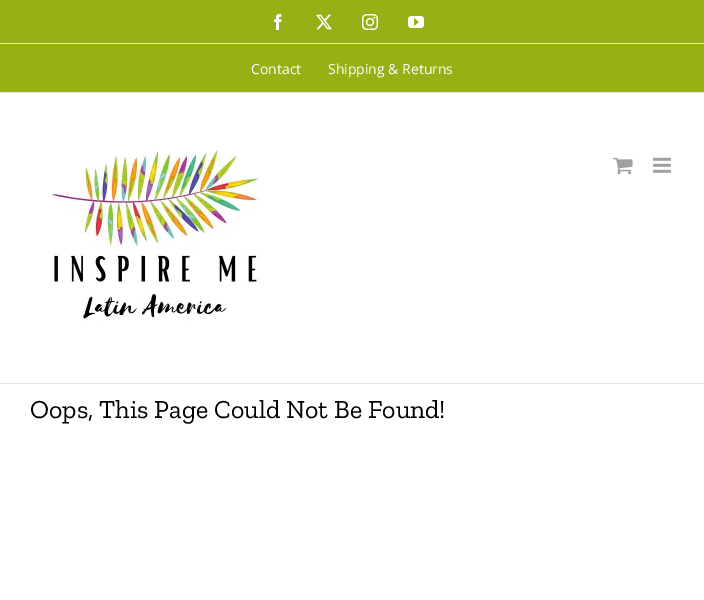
%!PS
<< /PageSize [704 600] >> setpagedevice
/picture { 5 dict begin { /h /w /y /x /name } { exch def } forall
  gsave x y translate w h scale
  w h 8 [w 0 0 h 0 0] name (r) file false 3 colorimage grestore end } def
0 600 translate 1 -1 scale
4 setmiterlimit
1 setgray
0 0 704 600 rectfill
0.596 0.686 0.086 setrgbcolor
0 0 704 92 rectfill
0.886 setgray
0 92 704 1 rectfill
0 43 704 1 rectfill
(img1.rgb) 274 14 8 16 picture
(img2.rgb) 316 14 16 16 picture
(img3.rgb) 362 14 16 16 picture
(img4.rgb) 408 16 16 12 picture
/OpenSans-Regular [14 0 0 -14 0 0] selectfont
1 setgray
251 74 moveto (Contact) show
328 74 moveto (Shipping & Returns) show
0.886 setgray
0 383 704 1 rectfill
(img5.rgb) 52 149 224 210 picture
(img6.rgb) 613 157 20 18 picture
(img7.rgb) 653 157 18 16 picture
/ZillaSlab-Regular [26 0 0 -26 0 0] selectfont
0 setgray
30 418 moveto (Oops, This Page Could Not Be Found!) show
showpage
